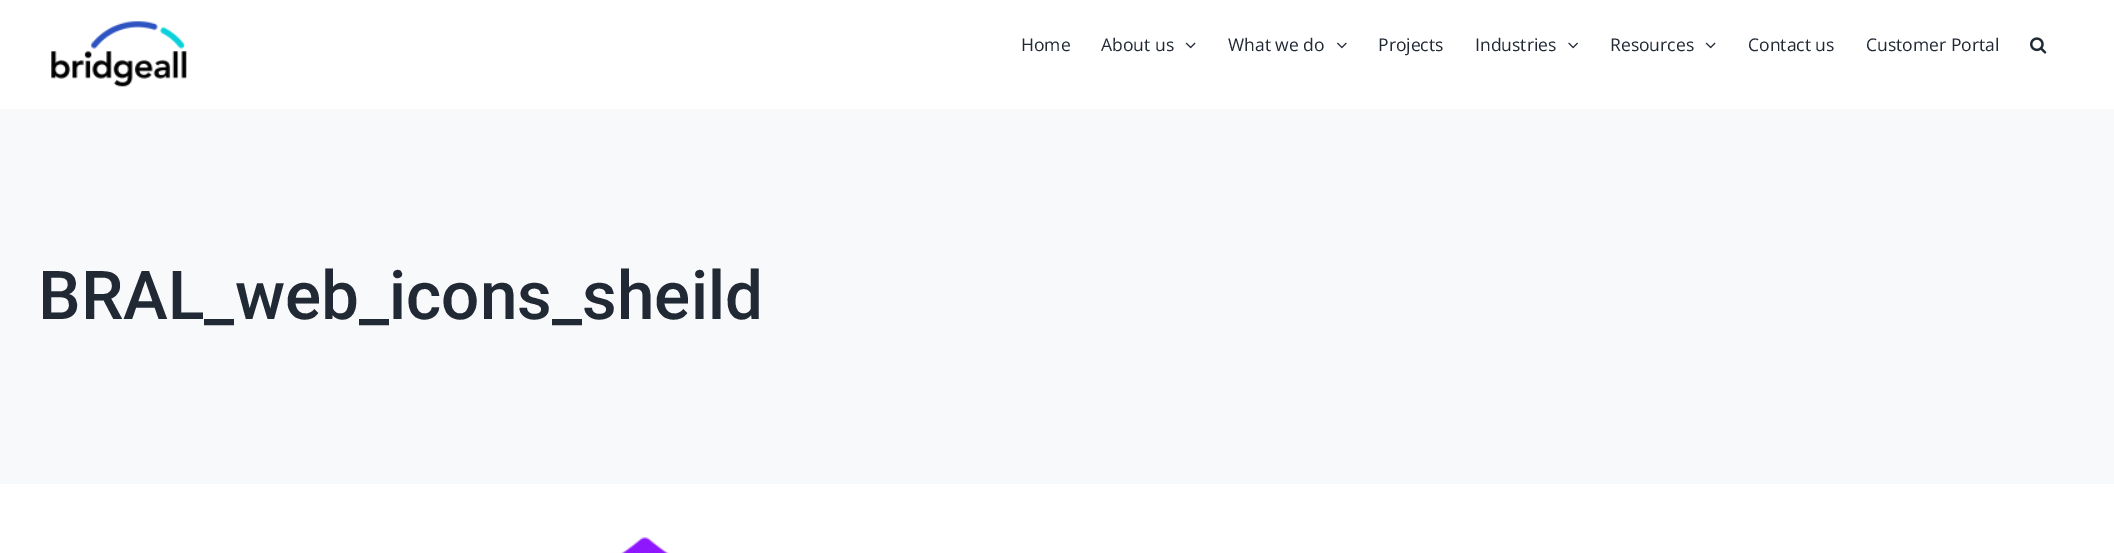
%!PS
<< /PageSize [2114 553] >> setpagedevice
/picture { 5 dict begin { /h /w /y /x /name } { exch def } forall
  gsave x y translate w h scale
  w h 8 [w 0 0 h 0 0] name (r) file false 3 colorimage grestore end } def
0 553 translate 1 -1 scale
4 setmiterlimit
1 setgray
0 0 2114 553 rectfill
(img1.rgb) 51 21 136 66 picture
/OpenSans-Regular [17.5 0 0 -17.5 0 0] selectfont
0.129 0.161 0.204 setrgbcolor
1021 51 moveto (Home) show
1101 51 moveto (About us) show
(img2.rgb) 1185 42 11 7 picture
1228 51 moveto (What we do) show
(img3.rgb) 1337 42 10 7 picture
1378 51 moveto (Projects) show
1475 51 moveto (Industries) show
(img4.rgb) 1568 42 10 7 picture
1610 51 moveto (Resources) show
(img2.rgb) 1705 42 11 7 picture
1748 51 moveto (Contact us) show
1866 51 moveto (Customer Portal) show
(img5.rgb) 2030 37 17 17 picture
0.973 0.976 0.98 setrgbcolor
0 109 2114 375 rectfill
/Roboto-Medium [67.5 0 0 -67.5 0 0] selectfont
0.129 0.161 0.204 setrgbcolor
38 319 moveto (BRAL_web_icons_sheild) show
(img6.rgb) 621 537 48 16 picture
showpage
